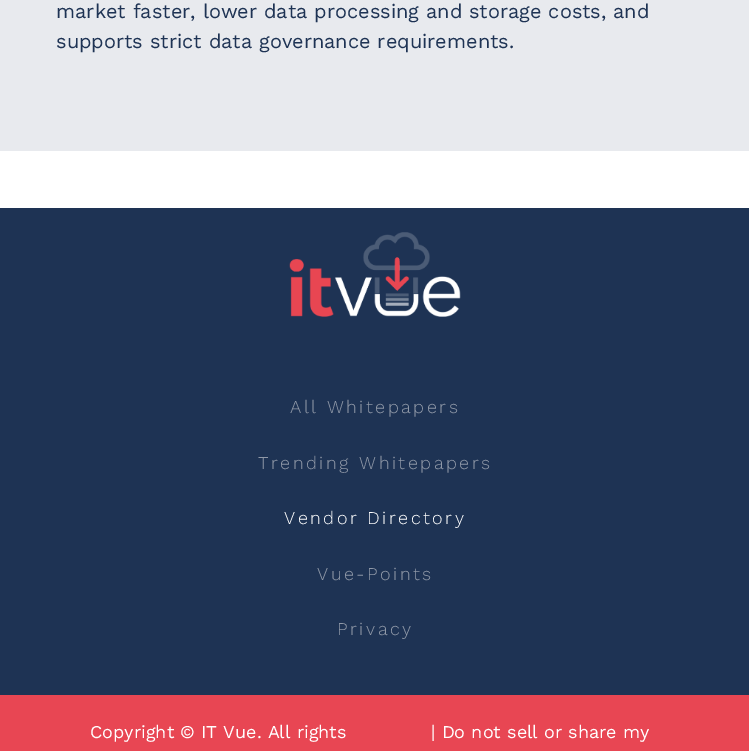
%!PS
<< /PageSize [749 751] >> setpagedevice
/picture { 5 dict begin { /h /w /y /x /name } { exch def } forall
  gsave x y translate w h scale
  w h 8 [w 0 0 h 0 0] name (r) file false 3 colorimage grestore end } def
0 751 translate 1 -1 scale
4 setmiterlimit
1 setgray
0 0 749 751 rectfill
0.91 0.918 0.933 setrgbcolor
0 0 749 151 rectfill
/WorkSans-Regular [20 0 0 -20 0 0] selectfont
0.118 0.2 0.329 setrgbcolor
56 18 moveto (market faster, lower data processing and storage costs, and) show
56 48 moveto (supports strict data governance requirements.) show
0 208 749 487 rectfill
(img1.rgb) 289 232 172 85 picture
/WorkSans-Light [18 0 0 -18 0 0] selectfont
0.565 0.6 0.659 setrgbcolor
290 413 moveto 2.5 0 (All Whitepapers) ashow
258 469 moveto 2.5 0 (Trending Whitepapers) ashow
1 setgray
284 524 moveto 2.5 0 (Vendor Directory) ashow
0.565 0.6 0.659 setrgbcolor
317 580 moveto 2.5 0 (Vue-Points) ashow
337 635 moveto 2.5 0 (Privacy) ashow
0.91 0.275 0.325 setrgbcolor
0 695 749 56 rectfill
/WorkSans-Regular [18 0 0 -18 0 0] selectfont
1 setgray
90 738 moveto (Copyright © IT Vue. All rights) show
431 738 moveto (| Do not sell or share my) show
showpage
